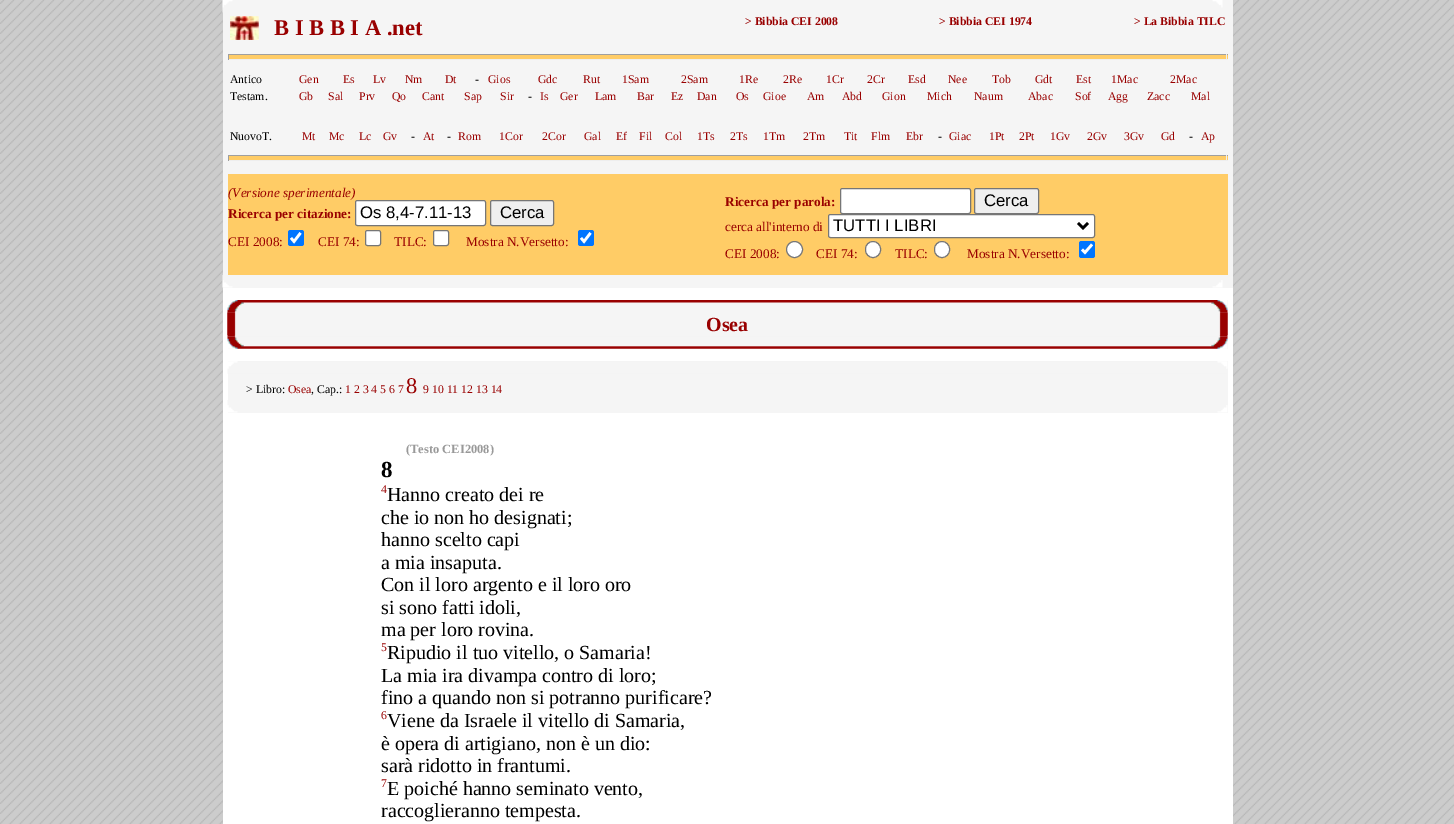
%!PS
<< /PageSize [1454 824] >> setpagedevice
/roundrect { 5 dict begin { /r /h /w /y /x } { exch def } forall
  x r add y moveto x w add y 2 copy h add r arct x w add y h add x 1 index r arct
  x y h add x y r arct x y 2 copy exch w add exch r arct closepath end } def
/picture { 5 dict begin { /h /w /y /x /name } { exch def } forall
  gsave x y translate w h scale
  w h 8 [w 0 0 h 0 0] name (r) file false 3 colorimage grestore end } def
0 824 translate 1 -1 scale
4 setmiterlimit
1 setgray
0 0 1454 824 rectfill
(img1.rgb) 0 0 1454 824 picture
223 288 1010 536 rectfill
0.961 setgray
223 0 1010 288 rectfill
(img2.rgb) 222 0 1001 13 picture
(img3.rgb) 230 16 29 24 picture
/LiberationSerif-Bold [22.5 0 0 -22.5 0 0] selectfont
0.6 0 0 setrgbcolor
274 35 moveto (B I B B I A .net) show
/LiberationSerif-Bold [11.75 0 0 -11.75 0 0] selectfont
745 25 moveto (> Bibbia CEI 2008) show
939 25 moveto (> Bibbia CEI 1974) show
1134 25 moveto (> La Bibbia TILC) show
1 0.8 0.4 setrgbcolor
228 55 1000 4 rectfill
0.624 setgray
228 54 1000 1 rectfill
0.933 setgray
1226 54 1 6 rectfill
228 59 1000 1 rectfill
0.624 setgray
228 54 1 6 rectfill
/LiberationSerif-Regular [11.75 0 0 -11.75 0 0] selectfont
0 setgray
230 83 moveto (Antico) show
0.6 0 0 setrgbcolor
299 83 moveto (Gen) show
343 83 moveto (Es) show
373 83 moveto (Lv) show
405 83 moveto (Nm) show
445 83 moveto (Dt) show
0 setgray
475 83 moveto (-) show
0.6 0 0 setrgbcolor
488 83 moveto (Gios) show
538 83 moveto (Gdc) show
583 83 moveto (Rut) show
622 83 moveto (1Sam) show
681 83 moveto (2Sam) show
739 83 moveto (1Re) show
783 83 moveto (2Re) show
826 83 moveto (1Cr) show
867 83 moveto (2Cr) show
908 83 moveto (Esd) show
948 83 moveto (Nee) show
992 83 moveto (Tob) show
1035 83 moveto (Gdt) show
1076 83 moveto (Est) show
1111 83 moveto (1Mac) show
1170 83 moveto (2Mac) show
0 setgray
230 100 moveto (Testam.) show
0.6 0 0 setrgbcolor
299 100 moveto (Gb) show
328 100 moveto (Sal) show
359 100 moveto (Prv) show
392 100 moveto (Qo) show
422 100 moveto (Cant) show
464 100 moveto (Sap) show
500 100 moveto (Sir) show
0 setgray
528 100 moveto (-) show
0.6 0 0 setrgbcolor
540 100 moveto (Is) show
560 100 moveto (Ger) show
595 100 moveto (Lam) show
637 100 moveto (Bar) show
671 100 moveto (Ez) show
697 100 moveto (Dan) show
736 100 moveto (Os) show
763 100 moveto (Gioe) show
807 100 moveto (Am) show
842 100 moveto (Abd) show
882 100 moveto (Gion) show
927 100 moveto (Mich) show
974 100 moveto (Naum) show
1028 100 moveto (Abac) show
1075 100 moveto (Sof) show
1108 100 moveto (Agg) show
1147 100 moveto (Zacc) show
1191 100 moveto (Mal) show
0 setgray
230 140 moveto (NuovoT.) show
0.6 0 0 setrgbcolor
302 140 moveto (Mt) show
329 140 moveto (Mc) show
359 140 moveto (Lc) show
383 140 moveto (Gv) show
0 setgray
411 140 moveto (-) show
0.6 0 0 setrgbcolor
423 140 moveto (At) show
0 setgray
447 140 moveto (-) show
0.6 0 0 setrgbcolor
458 140 moveto (Rom) show
499 140 moveto (1Cor) show
542 140 moveto (2Cor) show
584 140 moveto (Gal) show
616 140 moveto (Ef) show
639 140 moveto (Fil) show
665 140 moveto (Col) show
697 140 moveto (1Ts) show
730 140 moveto (2Ts) show
763 140 moveto (1Tm) show
803 140 moveto (2Tm) show
844 140 moveto (Tit) show
871 140 moveto (Flm) show
906 140 moveto (Ebr) show
0 setgray
938 140 moveto (-) show
0.6 0 0 setrgbcolor
949 140 moveto (Giac) show
989 140 moveto (1Pt) show
1019 140 moveto (2Pt) show
1050 140 moveto (1Gv) show
1087 140 moveto (2Gv) show
1124 140 moveto (3Gv) show
1161 140 moveto (Gd) show
0 setgray
1189 140 moveto (-) show
0.6 0 0 setrgbcolor
1201 140 moveto (Ap) show
1 0.8 0.4 setrgbcolor
228 156 1000 4 rectfill
0.624 setgray
228 155 1000 1 rectfill
0.933 setgray
1226 155 1 6 rectfill
228 160 1000 1 rectfill
0.624 setgray
228 155 1 6 rectfill
1 0.8 0.4 setrgbcolor
228 174 1000 101 rectfill
/LiberationSerif-Italic [13.25 0 0 -13.25 0 0] selectfont
0.6 0 0 setrgbcolor
228 197 moveto (\(Versione sperimentale\)) show
/LiberationSerif-Bold [13.25 0 0 -13.25 0 0] selectfont
228 218 moveto (Ricerca per citazione:) show
1 setgray
355.5 200.5 130 25 2 roundrect gsave fill grestore
0.463 setgray
stroke
/LiberationSans-Regular [16.75 0 0 -16.75 0 0] selectfont
0 setgray
360 218 moveto (Os 8,4-7.11-13) show
0.937 setgray
490.5 200.5 63 25 2 roundrect gsave fill grestore
0.463 setgray
stroke
0 setgray
500 218 moveto (Cerca) show
/LiberationSerif-Regular [13.25 0 0 -13.25 0 0] selectfont
0.6 0 0 setrgbcolor
228 246 moveto (CEI 2008:) show
0 0.459 1 setrgbcolor
288 230 16 16 2.5 roundrect fill
1 setgray
2.6 setlinewidth
newpath 291 238 moveto 294 241.5 lineto 300.5 233 lineto stroke
0.6 0 0 setrgbcolor
318 246 moveto (CEI 74:) show
1 setgray
365.5 230.5 15 15 2 roundrect gsave fill grestore
0.463 setgray
1 setlinewidth
stroke
0.6 0 0 setrgbcolor
394 246 moveto (TILC:) show
1 setgray
433.5 230.5 15 15 2 roundrect gsave fill grestore
0.463 setgray
stroke
0.6 0 0 setrgbcolor
466 246 moveto (Mostra N.Versetto:) show
0 0.459 1 setrgbcolor
578 230 16 16 2.5 roundrect fill
1 setgray
2.6 setlinewidth
newpath 581 238 moveto 584 241.5 lineto 590.5 233 lineto stroke
/LiberationSerif-Bold [13.25 0 0 -13.25 0 0] selectfont
0.6 0 0 setrgbcolor
725 206 moveto (Ricerca per parola:) show
1 setgray
840.5 188.5 130 25 2 roundrect gsave fill grestore
0.463 setgray
1 setlinewidth
stroke
0.937 setgray
974.5 188.5 64 25 2 roundrect gsave fill grestore
0.463 setgray
stroke
/LiberationSans-Regular [16.75 0 0 -16.75 0 0] selectfont
0 setgray
984 206 moveto (Cerca) show
/LiberationSerif-Regular [13.25 0 0 -13.25 0 0] selectfont
0.6 0 0 setrgbcolor
725 231 moveto (cerca all'interno di) show
1 setgray
828.5 214.5 266 23 2 roundrect gsave fill grestore
0.463 setgray
stroke
0 setgray
2.5 setlinewidth
newpath 1078 223 moveto 1083 228 lineto 1088 223 lineto stroke
/LiberationSans-Regular [16.75 0 0 -16.75 0 0] selectfont
833 231 moveto (TUTTI I LIBRI) show
/LiberationSerif-Regular [13.25 0 0 -13.25 0 0] selectfont
0.6 0 0 setrgbcolor
725 258 moveto (CEI 2008:) show
1 setgray
newpath 794.5 249.5 8 0 360 arc closepath gsave fill grestore
0.463 setgray
1 setlinewidth
stroke
0.6 0 0 setrgbcolor
816 258 moveto (CEI 74:) show
1 setgray
865.5 241.5 15 16 7.5 roundrect gsave fill grestore
0.463 setgray
stroke
0.6 0 0 setrgbcolor
895 258 moveto (TILC:) show
1 setgray
934.5 241.5 15 16 7.5 roundrect gsave fill grestore
0.463 setgray
stroke
0.6 0 0 setrgbcolor
967 258 moveto (Mostra N.Versetto:) show
0 0.459 1 setrgbcolor
1079 241 16 17 2.5 roundrect fill
1 setgray
2.6 setlinewidth
newpath 1082 249.5 moveto 1085 252.5 lineto 1092 244.5 lineto stroke
(img4.rgb) 222 275 1001 13 picture
0.961 setgray
228 300 1000 49 rectfill
(img6.rgb) 227 312 9 25 picture
(img8.rgb) 1219 312 9 25 picture
(img5.rgb) 227 300 1001 13 picture
(img7.rgb) 227 312 9 23 picture
(img9.rgb) 1219 312 9 23 picture
/LiberationSerif-Bold [20 0 0 -20 0 0] selectfont
0.6 0 0 setrgbcolor
706 331 moveto (Osea) show
(img10.rgb) 227 336 1001 13 picture
0.961 setgray
228 361 1000 52 rectfill
(img11.rgb) 227 361 1001 13 picture
/LiberationSerif-Regular [11.75 0 0 -11.75 0 0] selectfont
0 setgray
246 393 moveto (> Libro:) show
0.6 0 0 setrgbcolor
288 393 moveto (Osea) show
0 setgray
311 393 moveto (, Cap.:) show
0.6 0 0 setrgbcolor
345 393 moveto (1 2 3 4 5 6 7) show
/LiberationSerif-Regular [22.5 0 0 -22.5 0 0] selectfont
406 393 moveto (8) show
/LiberationSerif-Regular [11.75 0 0 -11.75 0 0] selectfont
423 393 moveto (9 10 11 12 13 14) show
(img12.rgb) 227 400 1001 13 picture
/LiberationSerif-Bold [12.5 0 0 -12.5 0 0] selectfont
0.6 setgray
406 453 moveto (\(Testo CEI2008\)) show
/LiberationSerif-Bold [23 0 0 -23 0 0] selectfont
0 setgray
381 477 moveto (8) show
/LiberationSerif-Regular [11.75 0 0 -11.75 0 0] selectfont
0.6 0 0 setrgbcolor
381 493 moveto (4) show
/LiberationSerif-Regular [20 0 0 -20 0 0] selectfont
0 setgray
387 501 moveto (Hanno creato dei re) show
381 524 moveto (che io non ho designati;) show
381 546 moveto (hanno scelto capi) show
381 569 moveto (a mia insaputa.) show
381 591 moveto (Con il loro argento e il loro oro) show
381 614 moveto (si sono fatti idoli,) show
381 636 moveto (ma per loro rovina.) show
/LiberationSerif-Regular [11.75 0 0 -11.75 0 0] selectfont
0.6 0 0 setrgbcolor
381 651 moveto (5) show
/LiberationSerif-Regular [20 0 0 -20 0 0] selectfont
0 setgray
387 659 moveto (Ripudio il tuo vitello, o Samaria!) show
381 682 moveto (La mia ira divampa contro di loro;) show
381 704 moveto (fino a quando non si potranno purificare?) show
/LiberationSerif-Regular [11.75 0 0 -11.75 0 0] selectfont
0.6 0 0 setrgbcolor
381 719 moveto (6) show
/LiberationSerif-Regular [20 0 0 -20 0 0] selectfont
0 setgray
387 727 moveto (Viene da Israele il vitello di Samaria,) show
381 750 moveto (è opera di artigiano, non è un dio:) show
381 772 moveto (sarà ridotto in frantumi.) show
/LiberationSerif-Regular [11.75 0 0 -11.75 0 0] selectfont
0.6 0 0 setrgbcolor
381 787 moveto (7) show
/LiberationSerif-Regular [20 0 0 -20 0 0] selectfont
0 setgray
387 795 moveto (E poiché hanno seminato vento,) show
381 817 moveto (raccoglieranno tempesta.) show
showpage
